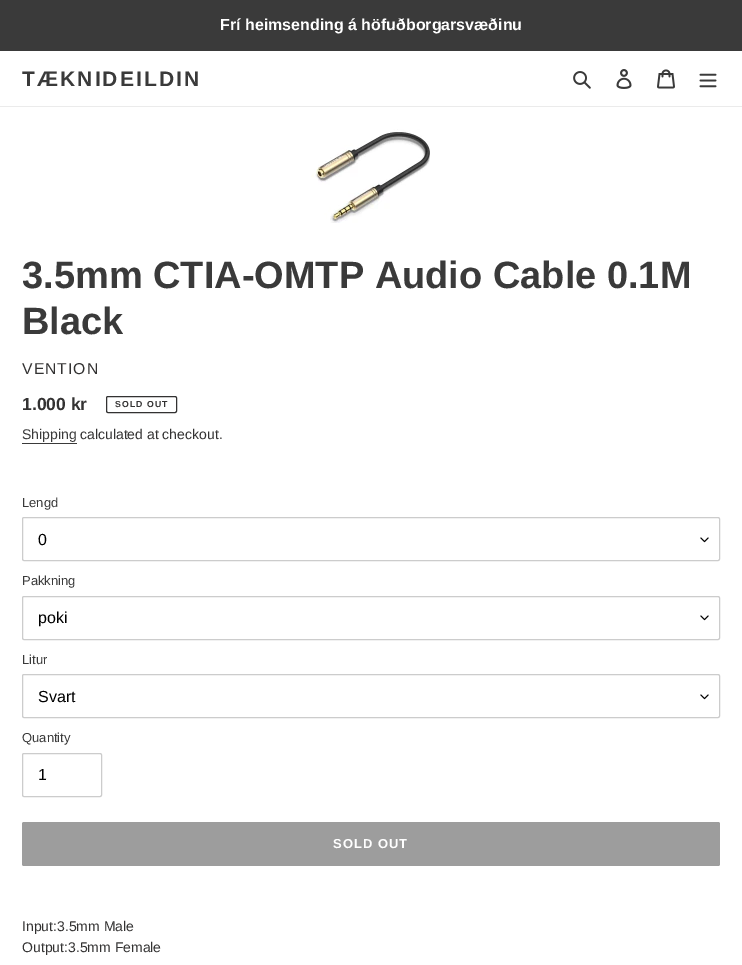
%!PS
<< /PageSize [742 965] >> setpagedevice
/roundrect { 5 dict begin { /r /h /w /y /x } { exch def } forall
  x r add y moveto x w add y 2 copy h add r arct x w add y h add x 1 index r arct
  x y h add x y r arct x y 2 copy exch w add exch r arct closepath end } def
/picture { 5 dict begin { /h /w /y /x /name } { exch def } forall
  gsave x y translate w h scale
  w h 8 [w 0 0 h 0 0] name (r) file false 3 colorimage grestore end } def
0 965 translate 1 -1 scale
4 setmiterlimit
1 setgray
0 0 742 965 rectfill
0.227 setgray
0 0 742 51 rectfill
/LiberationSans-Bold [16 0 0 -16 0 0] selectfont
1 setgray
220 30 moveto (Frí heimsending á höfuðborgarsvæðinu) show
0.922 setgray
0 106 742 1 rectfill
/LiberationSans-Bold [21 0 0 -21 0 0] selectfont
0.227 setgray
22 86 moveto 2.1 0 (TÆKNIDEILDIN) ashow
(img1.rgb) 573 71 18 18 picture
(img2.rgb) 616 69 16 20 picture
(img3.rgb) 657 69 18 20 picture
(img4.rgb) 699 73 18 15 picture
(img5.rgb) 311 129 119 94 picture
/LiberationSans-Bold [38 0 0 -38 0 0] selectfont
22 288 moveto (3.5mm CTIA-OMTP Audio Cable 0.1M) show
22 334 moveto (Black) show
/LiberationSans-Regular [15.75 0 0 -15.75 0 0] selectfont
0.2 0.196 0.196 setrgbcolor
22 374 moveto 1 0 (VENTION) ashow
/LiberationSans-Bold [17.5 0 0 -17.5 0 0] selectfont
22 410 moveto (1.000 kr) show
106.5 396.5 70 16 1.5 roundrect stroke
/LiberationSans-Bold [8.75 0 0 -8.75 0 0] selectfont
115 407 moveto 1 0 (SOLD OUT) ashow
/LiberationSans-Regular [14 0 0 -14 0 0] selectfont
0.227 setgray
22 439 moveto (Shipping) show
22 443 55 1 rectfill
0.2 0.196 0.196 setrgbcolor
80 439 moveto (calculated at checkout.) show
/LiberationSans-Regular [13 0 0 -13 0 0] selectfont
0.227 setgray
22 507 moveto (Lengd) show
(img6.rgb) 700 537 9 6 picture
0.8 setgray
22.5 517.5 697 43 1.5 roundrect stroke
/LiberationSans-Regular [16 0 0 -16 0 0] selectfont
0 setgray
38 545 moveto (0) show
/LiberationSans-Regular [13 0 0 -13 0 0] selectfont
0.227 setgray
22 585 moveto (Pakkning) show
(img6.rgb) 700 615 9 6 picture
0.8 setgray
22.5 596.5 697 43 1.5 roundrect stroke
/LiberationSans-Regular [16 0 0 -16 0 0] selectfont
0 setgray
38 623 moveto (poki) show
/LiberationSans-Regular [13 0 0 -13 0 0] selectfont
0.227 setgray
22 664 moveto (Litur) show
(img6.rgb) 700 694 9 6 picture
0.8 setgray
22.5 674.5 697 43 1.5 roundrect stroke
/LiberationSans-Regular [16 0 0 -16 0 0] selectfont
0 setgray
38 702 moveto (Svart) show
/LiberationSans-Regular [13 0 0 -13 0 0] selectfont
0.227 setgray
22 742 moveto (Quantity) show
0.8 setgray
22.5 753.5 79 43 1.5 roundrect stroke
/LiberationSans-Regular [16 0 0 -16 0 0] selectfont
0 setgray
38 780 moveto (1) show
0.616 setgray
22 822 698 44 2 roundrect fill
/LiberationSans-Bold [13 0 0 -13 0 0] selectfont
1 setgray
333 848 moveto 1 0 (SOLD OUT) ashow
/LiberationSans-Regular [14 0 0 -14 0 0] selectfont
0.2 0.196 0.196 setrgbcolor
22 931 moveto (Input:3.5mm Male) show
22 952 moveto (Output:3.5mm Female) show
showpage
